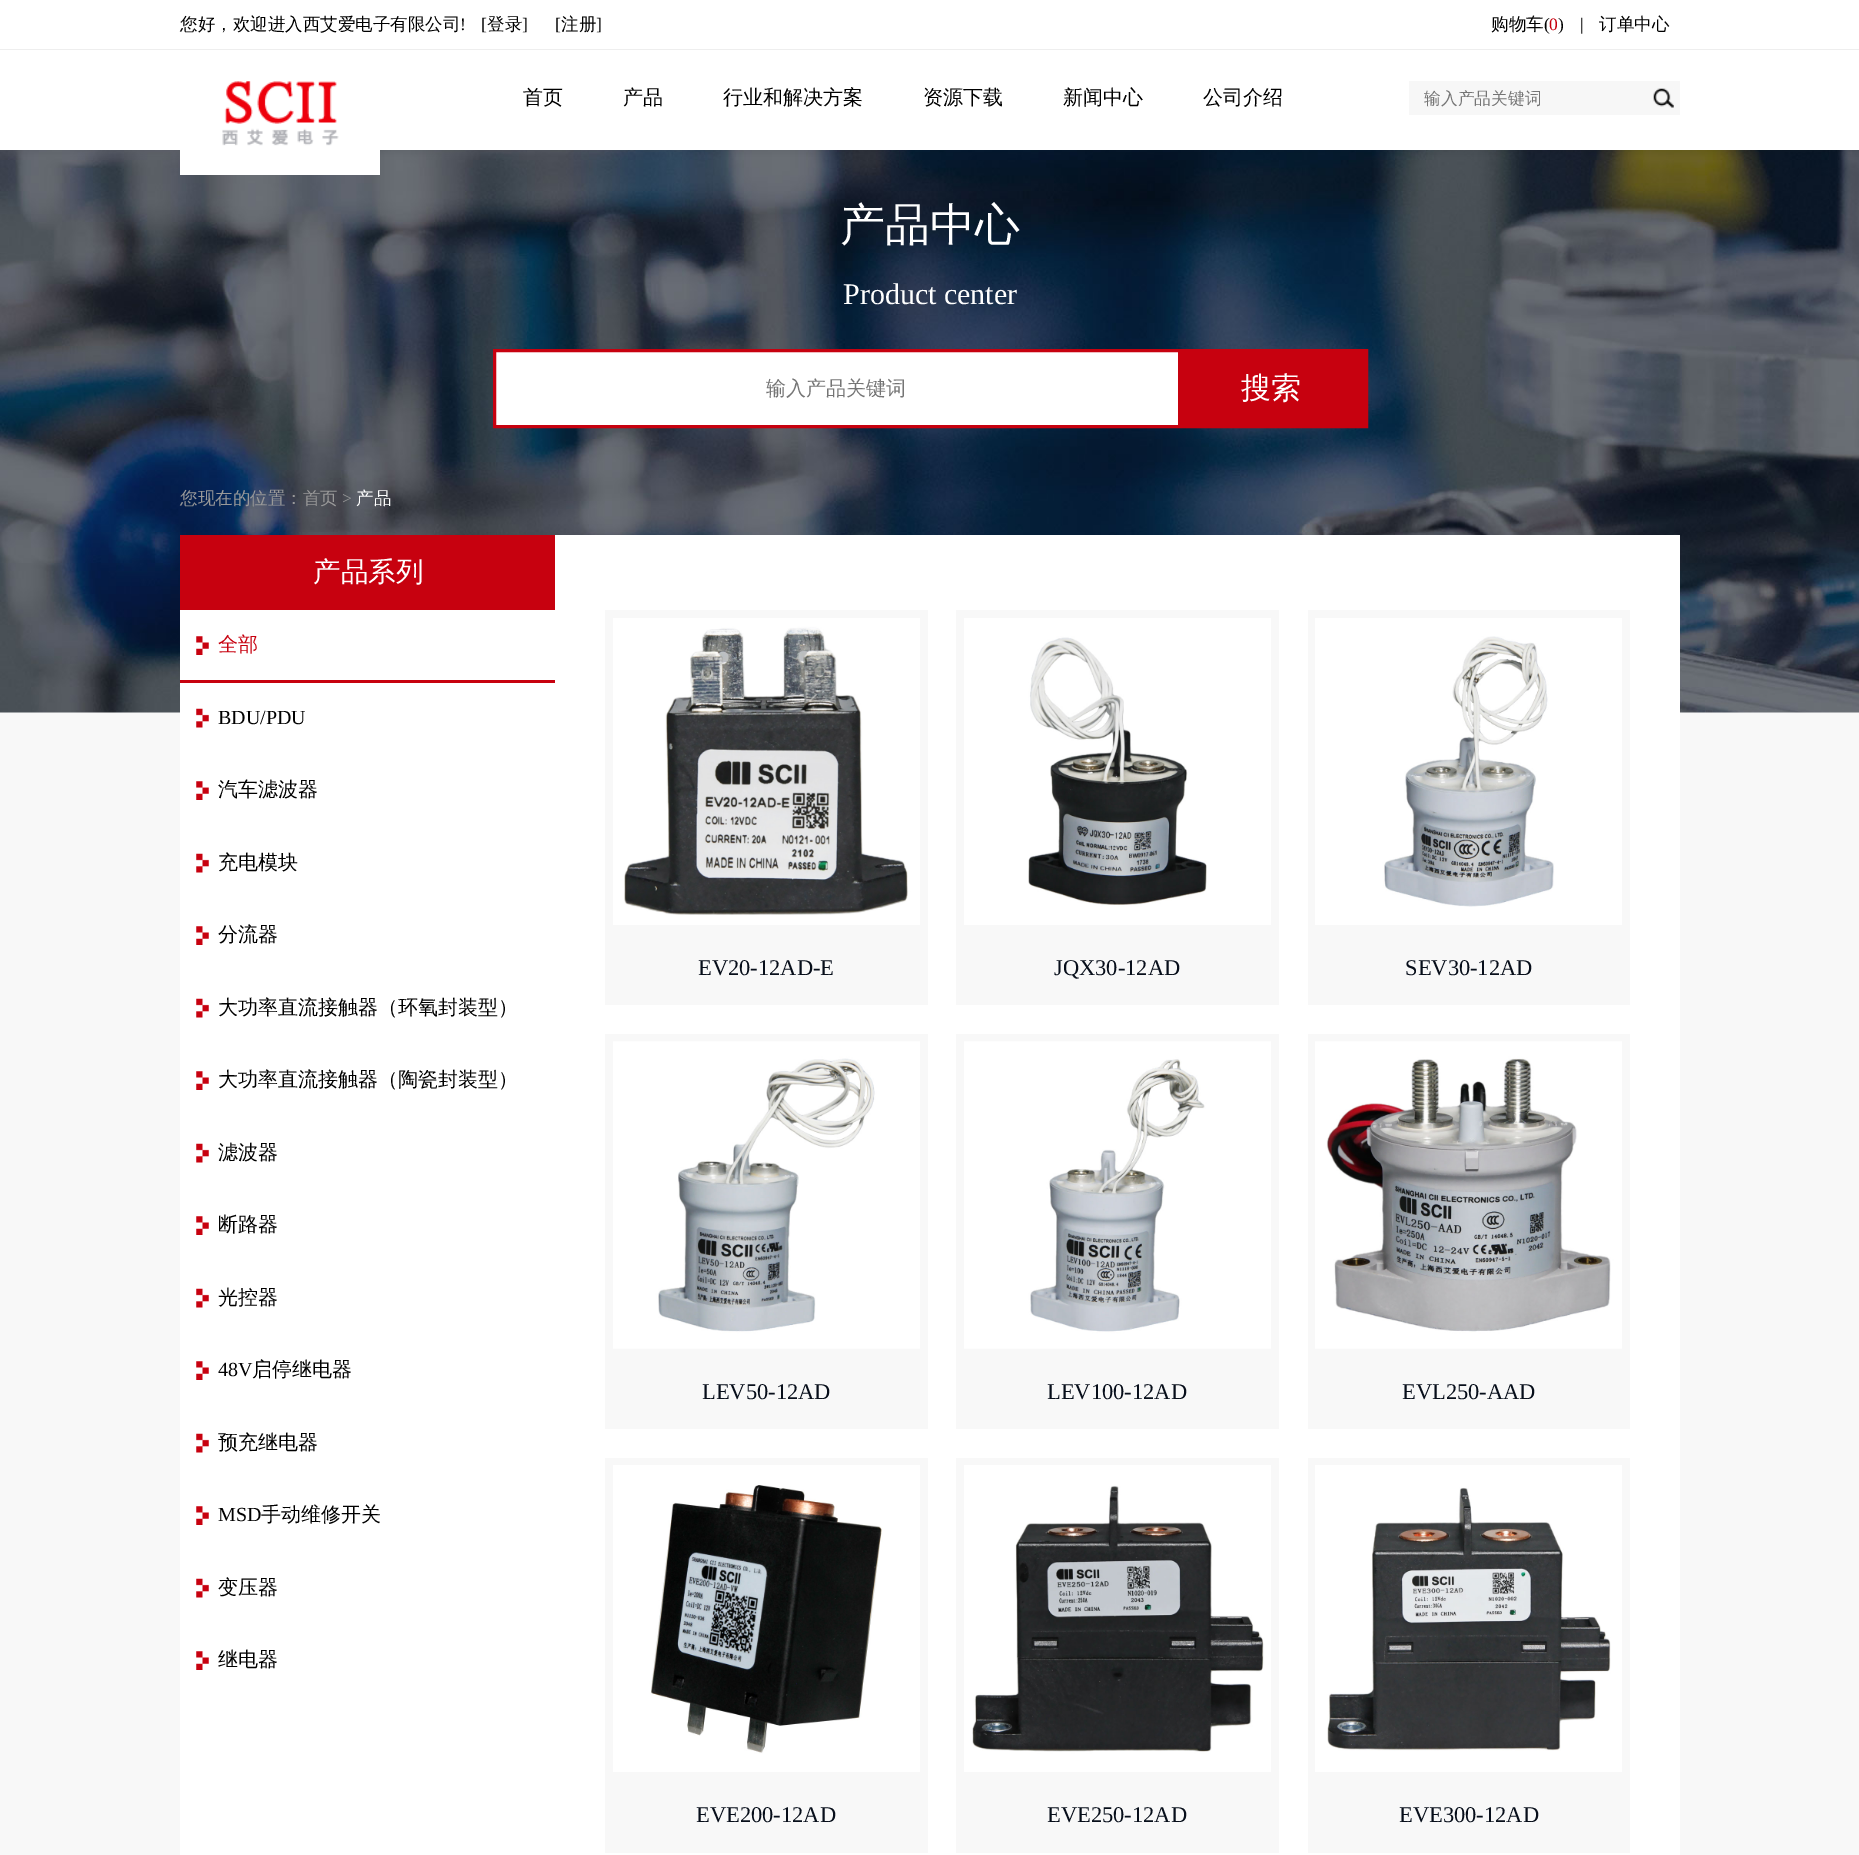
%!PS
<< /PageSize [1859 1855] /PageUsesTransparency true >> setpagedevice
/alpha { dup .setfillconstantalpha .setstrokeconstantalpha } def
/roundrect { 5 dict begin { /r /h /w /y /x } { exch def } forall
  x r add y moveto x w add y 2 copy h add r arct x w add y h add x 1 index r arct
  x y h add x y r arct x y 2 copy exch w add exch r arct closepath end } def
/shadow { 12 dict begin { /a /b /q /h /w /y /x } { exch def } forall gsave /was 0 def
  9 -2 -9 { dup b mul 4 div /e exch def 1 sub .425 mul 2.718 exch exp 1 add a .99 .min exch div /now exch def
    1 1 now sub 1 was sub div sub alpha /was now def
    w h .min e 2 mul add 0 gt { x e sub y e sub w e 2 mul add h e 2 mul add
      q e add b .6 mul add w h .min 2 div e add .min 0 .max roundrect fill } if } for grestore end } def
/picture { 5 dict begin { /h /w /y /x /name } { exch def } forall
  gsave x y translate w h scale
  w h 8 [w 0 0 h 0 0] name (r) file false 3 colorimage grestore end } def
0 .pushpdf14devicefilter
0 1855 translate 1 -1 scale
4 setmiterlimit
0.973 setgray
0 0 1859 1855 rectfill
(img3.rgb) 0 150 1859 563 picture
0 setgray
0 0 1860 150 0 6 0.1 shadow
1 setgray
0 0 1859 150 rectfill
0.933 setgray
0 49 1859 1 rectfill
/WenQuanYiZenHei-Medium [17.5 0 0 -17.5 0 0] selectfont
0 setgray
180 30 moveto (您好，欢迎进入西艾爱电子有限公司) show
/LiberationSerif-Regular [17.5 0 0 -17.5 0 0] selectfont
460 30 moveto (!) show
481 30 moveto ([) show
/WenQuanYiZenHei-Medium [17.5 0 0 -17.5 0 0] selectfont
487 30 moveto (登录) show
/LiberationSerif-Regular [17.5 0 0 -17.5 0 0] selectfont
522 30 moveto (]) show
555 30 moveto ([) show
/WenQuanYiZenHei-Medium [17.5 0 0 -17.5 0 0] selectfont
561 30 moveto (注册) show
/LiberationSerif-Regular [17.5 0 0 -17.5 0 0] selectfont
596 30 moveto (]) show
/WenQuanYiZenHei-Medium [17.5 0 0 -17.5 0 0] selectfont
1491 30 moveto (购物车) show
/LiberationSerif-Regular [17.5 0 0 -17.5 0 0] selectfont
1544 30 moveto (\() show
0.78 0.004 0.059 setrgbcolor
1549 30 moveto (0) show
0 setgray
1558 30 moveto (\)) show
1580 30 moveto (|) show
/WenQuanYiZenHei-Medium [17.5 0 0 -17.5 0 0] selectfont
1599 30 moveto (订单中心) show
(img1.rgb) 180 81 200 94 picture
/WenQuanYiZenHei-Medium [20 0 0 -20 0 0] selectfont
523 104 moveto (首页) show
623 104 moveto (产品) show
723 104 moveto (行业和解决方案) show
923 104 moveto (资源下载) show
1063 104 moveto (新闻中心) show
1203 104 moveto (公司介绍) show
0.969 setgray
1409 81 271 34 rectfill
/WenQuanYiZenHei-Medium [16.75 0 0 -16.75 0 0] selectfont
0.459 setgray
1424 104 moveto (输入产品关键词) show
(img2.rgb) 1653 88 21 20 picture
/WenQuanYiZenHei-Medium [45 0 0 -45 0 0] selectfont
1 setgray
840 240 moveto (产品中心) show
/LiberationSerif-Regular [30 0 0 -30 0 0] selectfont
843 304 moveto (Product center) show
496 352 682 73 rectfill
0.78 0.004 0.059 setrgbcolor
3 setlinewidth
494.5 350.5 872 76 rectstroke
/WenQuanYiZenHei-Medium [20 0 0 -20 0 0] selectfont
0.459 setgray
766 395 moveto (输入产品关键词) show
0.78 0.004 0.059 setrgbcolor
1178 352 187 73 rectfill
/WenQuanYiZenHei-Medium [30 0 0 -30 0 0] selectfont
1 setgray
1241 398 moveto (搜索) show
/WenQuanYiZenHei-Medium [17.5 0 0 -17.5 0 0] selectfont
0.6 setgray
180 504 moveto (您现在的位置：首页) show
/LiberationSerif-Regular [17.5 0 0 -17.5 0 0] selectfont
342 504 moveto (>) show
/WenQuanYiZenHei-Medium [17.5 0 0 -17.5 0 0] selectfont
1 setgray
356 504 moveto (产品) show
180 535 1500 1320 rectfill
0.78 0.004 0.059 setrgbcolor
180 535 375 75 rectfill
/WenQuanYiZenHei-Medium [27.5 0 0 -27.5 0 0] selectfont
1 setgray
313 581 moveto (产品系列) show
(img4.rgb) 196 636 13 19 picture
0.78 0.004 0.059 setrgbcolor
180 680 375 3 rectfill
/WenQuanYiZenHei-Medium [20 0 0 -20 0 0] selectfont
218 651 moveto (全部) show
(img5.rgb) 196 708 13 20 picture
/LiberationSerif-Regular [20 0 0 -20 0 0] selectfont
0 setgray
218 724 moveto (BDU/PDU) show
(img6.rgb) 196 781 13 19 picture
/WenQuanYiZenHei-Medium [20 0 0 -20 0 0] selectfont
218 796 moveto (汽车滤波器) show
(img5.rgb) 196 853 13 20 picture
218 869 moveto (充电模块) show
(img4.rgb) 196 926 13 19 picture
218 941 moveto (分流器) show
(img5.rgb) 196 998 13 20 picture
218 1014 moveto (大功率直流接触器（环氧封装型）) show
(img4.rgb) 196 1071 13 19 picture
218 1086 moveto (大功率直流接触器（陶瓷封装型）) show
(img5.rgb) 196 1143 13 20 picture
218 1159 moveto (滤波器) show
(img4.rgb) 196 1216 13 19 picture
218 1231 moveto (断路器) show
(img5.rgb) 196 1288 13 20 picture
218 1304 moveto (光控器) show
(img4.rgb) 196 1361 13 19 picture
/LiberationSerif-Regular [20 0 0 -20 0 0] selectfont
218 1376 moveto (48V) show
/WenQuanYiZenHei-Medium [20 0 0 -20 0 0] selectfont
252 1376 moveto (启停继电器) show
(img5.rgb) 196 1433 13 20 picture
218 1449 moveto (预充继电器) show
(img4.rgb) 196 1506 13 19 picture
/LiberationSerif-Regular [20 0 0 -20 0 0] selectfont
218 1521 moveto (MSD) show
/WenQuanYiZenHei-Medium [20 0 0 -20 0 0] selectfont
261 1521 moveto (手动维修开关) show
(img5.rgb) 196 1578 13 20 picture
218 1594 moveto (变压器) show
(img4.rgb) 196 1651 13 19 picture
218 1666 moveto (继电器) show
0.973 setgray
605 610 323 395 rectfill
(img7.rgb) 613 618 307 307 picture
/LiberationSerif-Regular [22.5 0 0 -22.5 0 0] selectfont
0.027 0.055 0.102 setrgbcolor
698 975 moveto (EV20-12AD-E) show
0.973 setgray
956 610 323 395 rectfill
(img8.rgb) 964 618 307 307 picture
0.027 0.055 0.102 setrgbcolor
1054 975 moveto (JQX30-12AD) show
0.973 setgray
1308 610 322 395 rectfill
(img9.rgb) 1315 618 307 307 picture
0.027 0.055 0.102 setrgbcolor
1405 975 moveto (SEV30-12AD) show
0.973 setgray
605 1034 323 395 rectfill
(img10.rgb) 613 1041 307 308 picture
0.027 0.055 0.102 setrgbcolor
702 1399 moveto (LEV50-12AD) show
0.973 setgray
956 1034 323 395 rectfill
(img11.rgb) 964 1041 307 308 picture
0.027 0.055 0.102 setrgbcolor
1047 1399 moveto (LEV100-12AD) show
0.973 setgray
1308 1034 322 395 rectfill
(img12.rgb) 1315 1041 307 308 picture
0.027 0.055 0.102 setrgbcolor
1402 1399 moveto (EVL250-AAD) show
0.973 setgray
605 1458 323 395 rectfill
(img13.rgb) 613 1465 307 307 picture
0.027 0.055 0.102 setrgbcolor
696 1822 moveto (EVE200-12AD) show
0.973 setgray
956 1458 323 395 rectfill
(img14.rgb) 964 1465 307 307 picture
0.027 0.055 0.102 setrgbcolor
1047 1822 moveto (EVE250-12AD) show
0.973 setgray
1308 1458 322 395 rectfill
(img15.rgb) 1315 1465 307 307 picture
0.027 0.055 0.102 setrgbcolor
1399 1822 moveto (EVE300-12AD) show
.poppdf14devicefilter showpage
